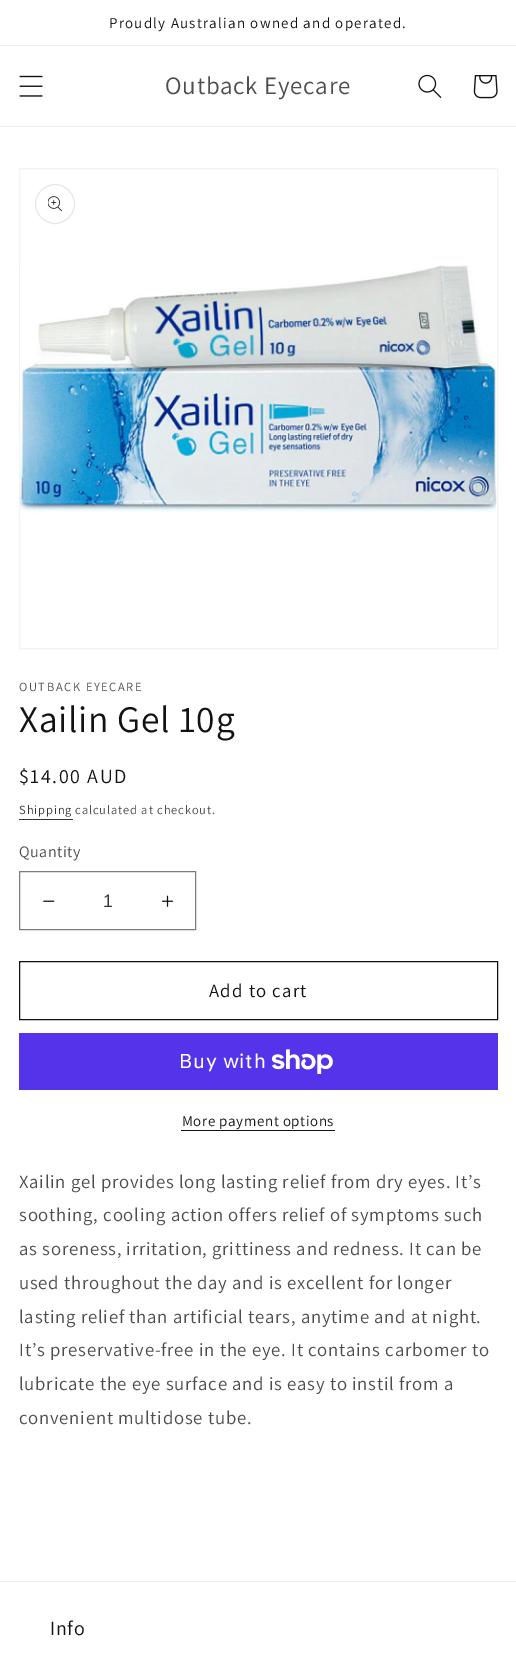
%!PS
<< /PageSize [516 1655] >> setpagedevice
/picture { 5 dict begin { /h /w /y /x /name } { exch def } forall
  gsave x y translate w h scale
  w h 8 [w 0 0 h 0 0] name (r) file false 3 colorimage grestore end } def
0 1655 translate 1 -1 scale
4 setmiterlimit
1 setgray
0 0 516 1655 rectfill
0.925 setgray
0 45 516 1 rectfill
/Assistant-Regular [15 0 0 -15 0 0] selectfont
0.071 setgray
109 28 moveto 1.25 0 (Proudly Australian owned and operated.) ashow
0.925 setgray
0 126 516 1 rectfill
(img1.rgb) 19 75 24 22 picture
/Assistant-Regular [25 0 0 -25 0 0] selectfont
0.302 setgray
165 94 moveto 0.75 0 (Outback Eyecare) ashow
(img2.rgb) 418 74 24 24 picture
(img3.rgb) 473 75 25 24 picture
0.953 setgray
19.5 168.5 478 480 rectstroke
(img4.rgb) 20 265 477 248 picture
0.906 setgray
newpath 55 204 19.5 0 360 arc closepath stroke
(img5.rgb) 48 196 14 16 picture
/Assistant-Regular [12.5 0 0 -12.5 0 0] selectfont
0.302 setgray
19 691 moveto 1.6 0 (OUTBACK EYECARE) ashow
/Assistant-Regular [37.5 0 0 -37.5 0 0] selectfont
0.071 setgray
19 732 moveto 0.75 0 (Xailin Gel 10g) ashow
/Assistant-Regular [20 0 0 -20 0 0] selectfont
19 783 moveto 1.6 0 ($14.00 AUD) ashow
/Assistant-Regular [12.5 0 0 -12.5 0 0] selectfont
0.212 setgray
19 814 moveto 0.9 0 (Shipping) ashow
19 819 54 1 rectfill
0.302 setgray
75 814 moveto 0.9 0 (calculated at checkout.) ashow
/Assistant-Regular [16 0 0 -16 0 0] selectfont
19 857 moveto 0.5 0 (Quantity) ashow
(img6.rgb) 43 900 12 2 picture
(img7.rgb) 161 895 13 12 picture
0.49 setgray
19.5 871.5 176 58 rectstroke
/LiberationSans-Regular [18 0 0 -18 0 0] selectfont
0.212 setgray
103 907 moveto (1) show
0.071 setgray
19.5 961.5 478 58 rectstroke
/Assistant-Regular [18.75 0 0 -18.75 0 0] selectfont
209 997 moveto 1.25 0 (Add to cart) ashow
0.329 0.2 0.922 setrgbcolor
19 1033 479 57 rectfill
/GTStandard-Regular [20 0 0 -20 0 0] selectfont
1 setgray
179 1068 moveto 0.75 0 (Buy with) ashow
(img8.rgb) 271 1049 62 25 picture
/Assistant-Regular [15 0 0 -15 0 0] selectfont
0.071 setgray
182 1126 moveto 0.6 0 (More payment options) ashow
181 1130 154 1 rectfill
/Assistant-Regular [18.75 0 0 -18.75 0 0] selectfont
0.302 setgray
19 1188 moveto 0.75 0 (Xailin gel provides long lasting relief from dry eyes. It’s) ashow
19 1221 moveto 0.75 0 (soothing, cooling action offers relief of symptoms such) ashow
19 1255 moveto 0.75 0 (as soreness, irritation, grittiness and redness. It can be) ashow
19 1289 moveto 0.75 0 (used throughout the day and is excellent for longer) ashow
19 1323 moveto 0.75 0 (lasting relief than artificial tears, anytime and at night.) ashow
19 1356 moveto 0.75 0 (It’s preservative-free in the eye. It contains carbomer to) ashow
19 1390 moveto 0.75 0 (lubricate the eye surface and is easy to instil from a) ashow
19 1424 moveto 0.75 0 (convenient multidose tube.) ashow
0.925 setgray
0 1581 516 1 rectfill
/Assistant-Regular [20 0 0 -20 0 0] selectfont
0.071 setgray
50 1635 moveto 0.75 0 (Info) ashow
showpage
